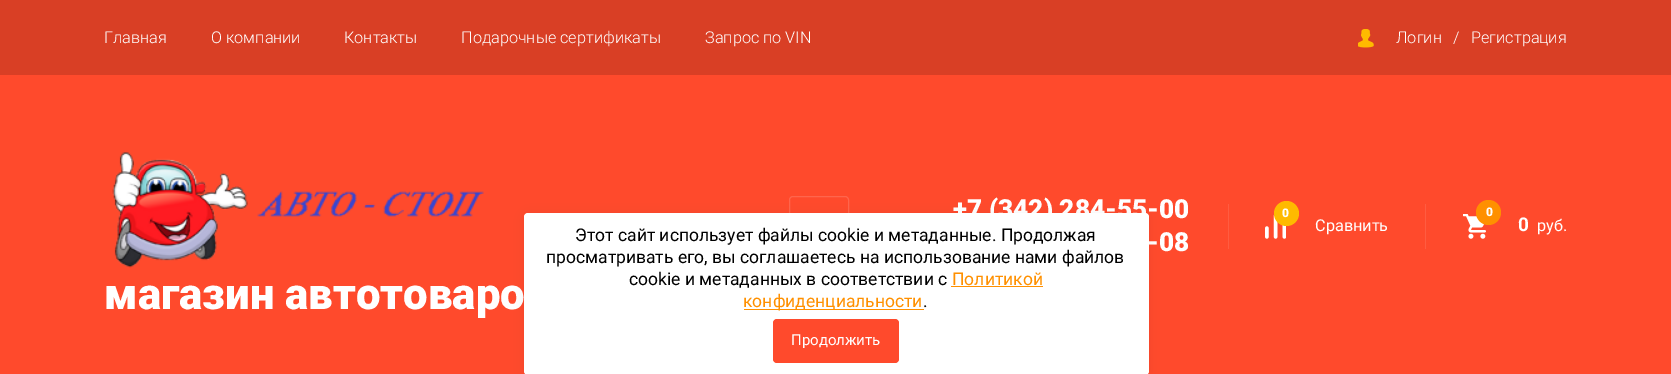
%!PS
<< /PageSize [1671 374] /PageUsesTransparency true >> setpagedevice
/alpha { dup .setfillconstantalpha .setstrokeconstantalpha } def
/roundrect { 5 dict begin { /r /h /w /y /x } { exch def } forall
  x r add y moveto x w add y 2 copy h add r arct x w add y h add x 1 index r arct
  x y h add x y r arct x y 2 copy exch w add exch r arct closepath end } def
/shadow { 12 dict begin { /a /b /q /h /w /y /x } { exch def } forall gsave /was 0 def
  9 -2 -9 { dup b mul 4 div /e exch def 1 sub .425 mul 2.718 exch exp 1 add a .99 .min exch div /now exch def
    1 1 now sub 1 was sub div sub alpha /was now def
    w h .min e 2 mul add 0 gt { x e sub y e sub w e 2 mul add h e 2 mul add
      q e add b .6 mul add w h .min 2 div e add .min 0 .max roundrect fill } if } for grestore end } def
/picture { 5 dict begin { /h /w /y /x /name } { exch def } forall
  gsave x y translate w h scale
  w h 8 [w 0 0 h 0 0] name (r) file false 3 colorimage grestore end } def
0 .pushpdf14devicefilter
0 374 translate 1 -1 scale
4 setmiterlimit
1 0.29 0.173 setrgbcolor
0 0 1671 374 rectfill
0.851 0.247 0.145 setrgbcolor
0 0 1671 75 rectfill
/Roboto-Light [16.25 0 0 -16.25 0 0] selectfont
1 setgray
104 43 moveto (Главная) show
211 43 moveto (О компании) show
344 43 moveto (Контакты) show
461 43 moveto (Подарочные сертификаты) show
705 43 moveto (Запрос по VIN) show
(img1.rgb) 1358 29 16 19 picture
1396 43 moveto (Логин) show
1453 43 moveto (/) show
1471 43 moveto (Регистрация) show
1 0.396 0.298 setrgbcolor
789.5 196.5 59 59 3.5 roundrect stroke
/Roboto-Black [26.25 0 0 -26.25 0 0] selectfont
1 setgray
953 218 moveto (+7 \(342\) 284-55-00) show
1147 251 moveto (-08) show
1 0.361 0.255 setrgbcolor
1228 204 1 45 rectfill
(img2.rgb) 1265 214 21 25 picture
1 0.729 0 setrgbcolor
newpath 1286.5 213.5 12.5 0 360 arc closepath fill
/Roboto-Black [12 0 0 -12 0 0] selectfont
1 setgray
1282 217 moveto (0) show
/Roboto-Regular [16.25 0 0 -16.25 0 0] selectfont
1315 231 moveto (Сравнить) show
1 0.361 0.255 setrgbcolor
1425 204 1 45 rectfill
(img3.rgb) 1463 214 23 25 picture
1 0.565 0 setrgbcolor
newpath 1488.5 212.5 12.5 0 360 arc closepath fill
/Roboto-Black [12 0 0 -12 0 0] selectfont
1 setgray
1486 216 moveto (0) show
/Roboto-Bold [19 0 0 -19 0 0] selectfont
1518 231 moveto (0) show
/Roboto-Regular [16.25 0 0 -16.25 0 0] selectfont
1537 231 moveto (руб.) show
(img4.rgb) 112 152 372 116 picture
/Roboto-Black [43.75 0 0 -43.75 0 0] selectfont
104 309 moveto (магазин автотоваро) show
0 setgray
524 214 625 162 4 6 0.06 shadow
1 setgray
524 213 625 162 4 roundrect fill
/Roboto-Regular [17.5 0 0 -17.5 0 0] selectfont
0 setgray
575 241 moveto (Этот сайт использует файлы cookie и метаданные. Продолжая) show
546 263 moveto (просматривать его, вы соглашаетесь на использование нами файлов) show
629 285 moveto (cookie и метаданных в соответствии с) show
1 0.565 0 setrgbcolor
952 285 moveto (Политикой) show
951 286 92 1 rectfill
744 309 180 1 rectfill
743 307 moveto (конфиденциальности) show
0 setgray
923 307 moveto (.) show
1 0.29 0.173 setrgbcolor
773 319 126 44 4 roundrect fill
/Roboto-Regular [15 0 0 -15 0 0] selectfont
1 setgray
791 345 moveto (Продолжить) show
.poppdf14devicefilter showpage
